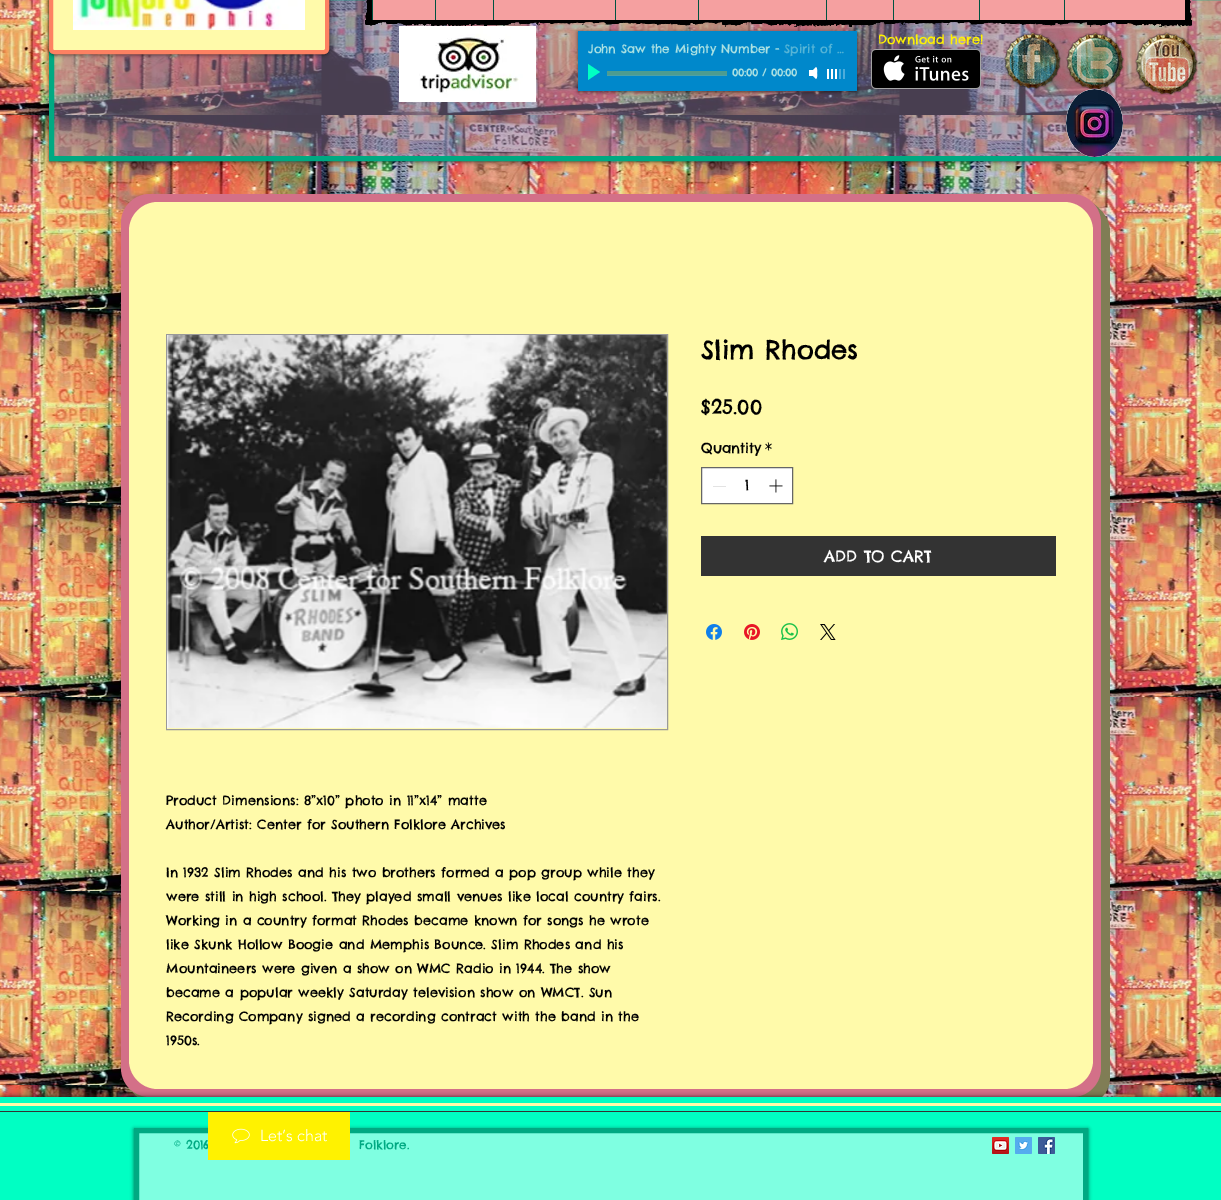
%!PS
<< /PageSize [1221 1200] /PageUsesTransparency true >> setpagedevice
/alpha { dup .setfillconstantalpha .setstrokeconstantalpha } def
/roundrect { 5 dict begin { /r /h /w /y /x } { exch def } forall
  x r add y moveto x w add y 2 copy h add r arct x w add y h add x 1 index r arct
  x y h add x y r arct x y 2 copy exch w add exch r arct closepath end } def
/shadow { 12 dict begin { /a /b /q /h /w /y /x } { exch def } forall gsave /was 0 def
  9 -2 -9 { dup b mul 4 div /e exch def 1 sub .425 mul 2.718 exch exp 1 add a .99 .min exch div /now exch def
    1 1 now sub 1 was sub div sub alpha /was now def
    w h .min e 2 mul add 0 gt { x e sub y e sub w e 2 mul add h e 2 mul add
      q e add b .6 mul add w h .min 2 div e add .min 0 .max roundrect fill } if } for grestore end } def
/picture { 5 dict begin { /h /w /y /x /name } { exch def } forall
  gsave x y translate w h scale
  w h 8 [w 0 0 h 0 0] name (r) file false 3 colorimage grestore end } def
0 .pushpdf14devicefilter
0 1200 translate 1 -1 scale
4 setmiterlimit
1 setgray
0 0 1221 1200 rectfill
(img1.rgb) 0 0 1221 1097 picture
gsave
newpath 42 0 moveto 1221 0 lineto 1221 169 lineto 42 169 lineto closepath 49 -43 moveto 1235 -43 lineto 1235 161 lineto 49 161 lineto closepath eoclip newpath
0 setgray
49 -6 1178 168 0 2 0.6 shadow
grestore
0.49 alpha
0.576 0.498 0.643 setrgbcolor
newpath 51.5 -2.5 moveto 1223.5 -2.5 lineto 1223.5 158.5 lineto 51.5 158.5 lineto closepath fill
1 alpha
0 0.663 0.51 setrgbcolor
5 setlinewidth
newpath 51.5 -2.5 moveto 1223.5 -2.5 lineto 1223.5 158.5 lineto 51.5 158.5 lineto closepath stroke
0 setgray
49 -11 280 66 5 2 0.6 shadow
1 0.98 0.667 setrgbcolor
51 -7 276 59 3 roundrect gsave fill grestore
0.992 0.506 0.384 setrgbcolor
4 setlinewidth
stroke
(img2.rgb) 73 0 232 30 picture
(img3.rgb) 365 0 7 20 picture
0.961 0.627 0.627 setrgbcolor
373 0 812 20 rectfill
0 0.329 0.255 setrgbcolor
372 0 1 20 rectfill
435 0 1 20 rectfill
493 0 1 20 rectfill
615 0 1 20 rectfill
698 0 1 20 rectfill
826 0 1 20 rectfill
893 0 1 20 rectfill
979 0 1 20 rectfill
1064 0 1 20 rectfill
(img4.rgb) 1185 0 7 20 picture
(img5.rgb) 365 20 827 7 picture
(img6.rgb) 399 26 137 76 picture
/ChelseaMarket-Regular [13 0 0 -13 0 0] selectfont
1 0.949 0 setrgbcolor
878 44 moveto (Download here!) show
(img7.rgb) 1004 31 57 59 picture
(img8.rgb) 1061 31 68 59 picture
(img9.rgb) 1129 31 75 65 picture
0 setgray
578 32 279 60 0 2 0.6 shadow
0 0.533 0.796 setrgbcolor
578 31 279 60 rectfill
/ChelseaMarket-Regular [12 0 0 -12 0 0] selectfont
0.671 0.882 0.886 setrgbcolor
588 53 moveto (John Saw the Mighty Number -) show
0.337 0.71 0.843 setrgbcolor
784 53 moveto (Spirit of …) show
0 1 0.765 setrgbcolor
newpath 588 80 moveto 588 64 lineto 600 72 lineto closepath fill
0.302 0.612 0.565 setrgbcolor
607 71 120 4 rectfill
0.302 0.631 0.655 setrgbcolor
607 75 120 1 rectfill
/ChelseaMarket-Bold [10 0 0 -10 0 0] selectfont
0.671 0.882 0.886 setrgbcolor
732 76 moveto (00:00 / 00:00) show
1 setgray
newpath 810 73 moveto 816 79 lineto 817.5 77.5 817 75 817 73 curveto 817 71 817.5 68.5 816 67 curveto closepath fill
809 70 4 6 rectfill
827 69 2 10 rectfill
831 69 2 10 rectfill
835 69 2 10 rectfill
0.302 0.675 0.859 setrgbcolor
839 69 2 10 rectfill
843 69 2 10 rectfill
(img10.rgb) 871 49 110 40 picture
1 setgray
newpath 1094.5 89 moveto 1110 89 1123 104 1123 123 curveto 1123 142 1110 157 1094.5 157 curveto 1079 157 1066 142 1066 123 curveto 1066 104 1079 89 1094.5 89 curveto closepath fill
(img11.rgb) 1066 89 57 68 picture
0.502 0.49 0.333 setrgbcolor
newpath 134 1093 moveto 140 1101 149 1106 159 1106 curveto 1081 1106 lineto 1097 1106 1110 1093 1110 1077 curveto 1110 232 lineto 1110 222 1105 213 1097 207 curveto 1099 212 1101 217 1101 223 curveto 1101 1068 lineto 1101 1084 1088 1097 1072 1097 curveto 150 1097 lineto 144 1097 139 1095 134 1093 curveto closepath fill
newpath 133 1092 moveto 139 1099 147 1104 157 1104 curveto 1079 1104 lineto 1095 1104 1108 1091 1108 1075 curveto 1108 230 lineto 1108 220 1103 212 1096 206 curveto 1099 211 1101 217 1101 223 curveto 1101 1068 lineto 1101 1084 1088 1097 1072 1097 curveto 150 1097 lineto 144 1097 138 1095 133 1092 curveto closepath fill
newpath 132 1091 moveto 137 1098 146 1102 155 1102 curveto 1077 1102 lineto 1093 1102 1106 1089 1106 1073 curveto 1106 228 lineto 1106 219 1102 210 1095 205 curveto 1099 210 1101 216 1101 223 curveto 1101 1068 lineto 1101 1084 1088 1097 1072 1097 curveto 150 1097 lineto 143 1097 137 1095 132 1091 curveto closepath fill
newpath 131 1090 moveto 136 1096 144 1100 153 1100 curveto 1075 1100 lineto 1091 1100 1104 1087 1104 1071 curveto 1104 226 lineto 1104 217 1100 209 1094 204 curveto 1098 209 1101 216 1101 223 curveto 1101 1068 lineto 1101 1084 1088 1097 1072 1097 curveto 150 1097 lineto 143 1097 136 1094 131 1090 curveto closepath fill
newpath 130 1089 moveto 135 1095 143 1098 151 1098 curveto 1073 1098 lineto 1089 1098 1102 1085 1102 1069 curveto 1102 224 lineto 1102 216 1099 208 1093 203 curveto 1098 208 1101 215 1101 223 curveto 1101 1068 lineto 1101 1084 1088 1097 1072 1097 curveto 150 1097 lineto 142 1097 135 1094 130 1089 curveto closepath fill
0.827 0.439 0.533 setrgbcolor
121 194 980 903 29 roundrect fill
1 0.98 0.667 setrgbcolor
129 202 964 887 29 roundrect fill
/ChelseaMarket-Regular [26 0 0 -26 0 0] selectfont
0 setgray
701 359 moveto (Slim Rhodes) show
/ChelseaMarket-Regular [20 0 0 -20 0 0] selectfont
701 414 moveto ($25.00) show
/ChelseaMarket-Regular [14 0 0 -14 0 0] selectfont
701 453 moveto (Quantity) show
765 453 moveto (*) show
1 setgray
newpath 701.5 467.5 moveto 792.5 467.5 lineto 792.5 503.5 lineto 701.5 503.5 lineto closepath gsave fill grestore
0.4 setgray
1 setlinewidth
stroke
0.89 setgray
713 486 13 1 rectfill
0 setgray
745 490 moveto (1) show
(img12.rgb) 769 479 14 14 picture
0.2 setgray
701 536 355 40 rectfill
/ChelseaMarket-Regular [16 0 0 -16 0 0] selectfont
1 setgray
824 562 moveto (ADD TO CART) show
(img13.rgb) 706 624 16 16 picture
(img14.rgb) 744 624 16 16 picture
(img15.rgb) 781 623 17 17 picture
(img16.rgb) 820 624 16 16 picture
0.6 setgray
166.5 334.5 501 395 rectstroke
(img17.rgb) 167 335 500 394 picture
/ChelseaMarket-Regular [13 0 0 -13 0 0] selectfont
0 setgray
166 805 moveto (Product Dimensions: 8”x10” photo in 11”x14” matte) show
166 829 moveto (Author/Artist: Center for Southern Folklore Archives) show
166 877 moveto (In 1932 Slim Rhodes and his two brothers formed a pop group while they) show
166 901 moveto (were still in high school. They played small venues like local country fairs.) show
166 925 moveto (Working in a country format Rhodes became known for songs he wrote) show
166 949 moveto (like Skunk Hollow Boogie and Memphis Bounce. Slim Rhodes and his) show
166 973 moveto (Mountaineers were given a show on WMC Radio in 1944. The show) show
166 997 moveto (became a popular weekly Saturday television show on WMCT. Sun) show
166 1021 moveto (Recording Company signed a recording contract with the band in the) show
166 1045 moveto (1950s.) show
0 1097 1221 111 0 2.5 0.7 shadow
0 1 0.765 setrgbcolor
0 1097 1221 103 rectfill
1 0.98 0.667 setrgbcolor
0 1103 1221 3 rectfill
0.2 setgray
0 1111 1221 1 rectfill
0 setgray
134 1129 954 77 0 2 0.6 shadow
0.498 1 0.882 setrgbcolor
newpath 136.5 1130.5 moveto 1085.5 1130.5 lineto 1085.5 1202.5 lineto 136.5 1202.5 lineto closepath gsave fill grestore
0 0.663 0.51 setrgbcolor
5 setlinewidth
stroke
/ChelseaMarket-Regular [12 0 0 -12 0 0] selectfont
174 1149 moveto (© 2016) show
1 0.949 0 setrgbcolor
208 1112 142 48 rectfill
(img18.rgb) 232 1128 18 16 picture
/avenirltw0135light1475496-Light [16 0 0 -16 0 0] selectfont
1 setgray
260 1141 moveto (Let’s chat) show
/ChelseaMarket-Regular [12 0 0 -12 0 0] selectfont
0 0.663 0.51 setrgbcolor
359 1149 moveto (Folklore.) show
(img19.rgb) 992 1137 17 17 picture
(img20.rgb) 1015 1137 17 17 picture
(img21.rgb) 1038 1137 17 17 picture
.poppdf14devicefilter showpage
